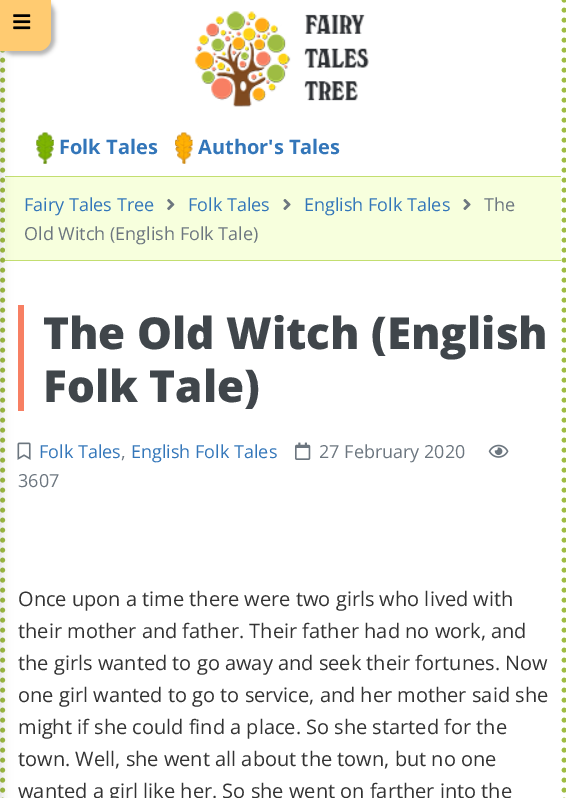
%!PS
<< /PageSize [566 798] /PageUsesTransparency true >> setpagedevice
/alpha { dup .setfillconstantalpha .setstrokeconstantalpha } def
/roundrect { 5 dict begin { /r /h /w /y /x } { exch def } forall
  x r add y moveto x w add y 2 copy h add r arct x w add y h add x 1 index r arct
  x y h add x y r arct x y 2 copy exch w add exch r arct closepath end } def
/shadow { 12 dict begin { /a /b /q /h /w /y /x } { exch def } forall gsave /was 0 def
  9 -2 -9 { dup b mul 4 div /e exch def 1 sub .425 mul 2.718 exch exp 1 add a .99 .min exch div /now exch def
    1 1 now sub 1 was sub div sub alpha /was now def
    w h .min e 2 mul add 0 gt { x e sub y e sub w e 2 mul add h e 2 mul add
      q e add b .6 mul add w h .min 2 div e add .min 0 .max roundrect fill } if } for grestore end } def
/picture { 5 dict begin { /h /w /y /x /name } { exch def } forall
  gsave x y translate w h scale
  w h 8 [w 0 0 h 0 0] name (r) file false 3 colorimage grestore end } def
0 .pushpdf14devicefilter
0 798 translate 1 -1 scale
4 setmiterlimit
1 setgray
0 0 566 798 rectfill
0.62 0.737 0.263 setrgbcolor
5 setlinewidth
1 setlinecap
[0 10] 0 setdash
newpath 2.5 0 moveto 2.5 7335 lineto stroke
0.969 1 0.867 setrgbcolor
5 177 556 83 rectfill
0.765 0.871 0.439 setrgbcolor
5 176 556 1 rectfill
5 260 556 1 rectfill
0.969 0.498 0.388 setrgbcolor
18 305 6 106 rectfill
(img7.rgb) 17 442 14 18 picture
0 setgray
-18 0 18 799 0 6 0.18 shadow
0.706 setgray
-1 -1 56 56 15 2 1 shadow
1 0.796 0.443 setrgbcolor
newpath 0 0 moveto 51 0 lineto 51 38 lineto 51 45 45 51 38 51 curveto 0 51 lineto closepath fill
(img1.rgb) 13 14 18 16 picture
0.62 0.737 0.263 setrgbcolor
newpath 564 0 moveto 564 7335 lineto stroke
(img2.rgb) 194 11 175 96 picture
(img3.rgb) 36 132 18 32 picture
/OpenSans-Bold [20 0 0 -20 0 0] selectfont
0.2 0.463 0.725 setrgbcolor
59 154 moveto (Folk Tales) show
(img4.rgb) 175 132 18 32 picture
198 154 moveto (Author's Tales) show
/OpenSans-Regular [18 0 0 -18 0 0] selectfont
24 211 moveto (Fairy Tales Tree) show
(img5.rgb) 167 198 8 13 picture
188 211 moveto (Folk Tales) show
(img6.rgb) 283 199 8 11 picture
304 211 moveto (English Folk Tales) show
(img6.rgb) 463 199 8 11 picture
0.424 0.463 0.498 setrgbcolor
484 211 moveto (The) show
24 240 moveto (Old Witch \(English Folk Tale\)) show
/OpenSans-ExtraBold [44 0 0 -44 0 0] selectfont
0.251 0.275 0.294 setrgbcolor
43 349 moveto (The Old Witch \(English) show
43 402 moveto (Folk Tale\)) show
/OpenSans-Regular [18 0 0 -18 0 0] selectfont
0.2 0.463 0.725 setrgbcolor
39 458 moveto (Folk Tales) show
0.424 0.463 0.498 setrgbcolor
121 458 moveto (,) show
0.2 0.463 0.725 setrgbcolor
131 458 moveto (English Folk Tales) show
(img8.rgb) 295 442 16 18 picture
0.424 0.463 0.498 setrgbcolor
319 458 moveto (27 February 2020) show
(img9.rgb) 488 444 21 14 picture
18 487 moveto (3607) show
/OpenSans-Regular [20 0 0 -20 0 0] selectfont
0.2 setgray
18 606 moveto (Once upon a time there were two girls who lived with) show
18 638 moveto (their mother and father. Their father had no work, and) show
18 670 moveto (the girls wanted to go away and seek their fortunes. Now) show
18 702 moveto (one girl wanted to go to service, and her mother said she) show
18 734 moveto (might if she could find a place. So she started for the) show
18 766 moveto (town. Well, she went all about the town, but no one) show
18 798 moveto (wanted a girl like her. So she went on farther into the) show
.poppdf14devicefilter showpage
